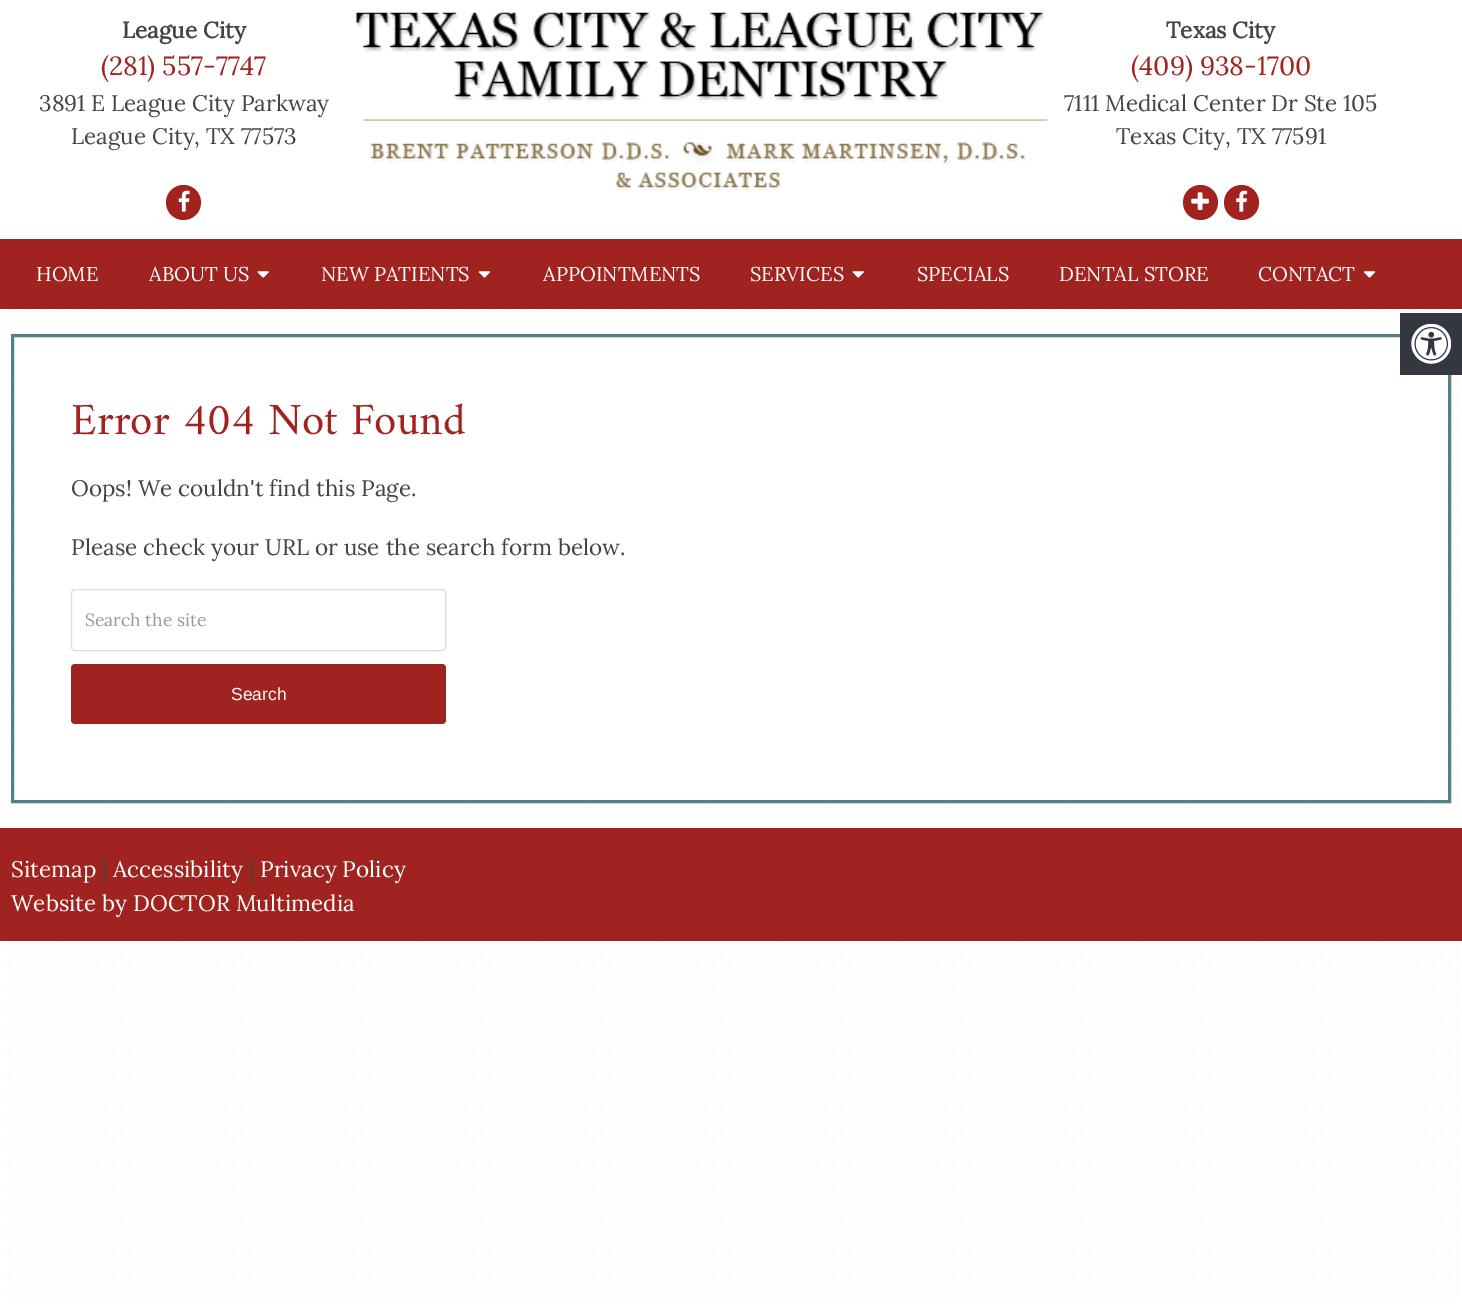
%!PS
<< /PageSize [1462 1304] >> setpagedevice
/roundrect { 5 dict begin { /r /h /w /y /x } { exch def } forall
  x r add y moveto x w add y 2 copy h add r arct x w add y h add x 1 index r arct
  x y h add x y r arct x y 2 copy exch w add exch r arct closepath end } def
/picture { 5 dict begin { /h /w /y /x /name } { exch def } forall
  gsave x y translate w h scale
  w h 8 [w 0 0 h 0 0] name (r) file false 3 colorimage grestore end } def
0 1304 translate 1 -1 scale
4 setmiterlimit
1 setgray
0 0 1462 1304 rectfill
(img1.rgb) 5 309 1456 992 picture
/Lora-Bold [22.5 0 0 -22.5 0 0] selectfont
0.267 setgray
122 38 moveto (League City) show
/Lora-Regular [26.25 0 0 -26.25 0 0] selectfont
0.627 0.137 0.122 setrgbcolor
101 75 moveto (\(281\) 557-7747) show
/Lora-Regular [22.5 0 0 -22.5 0 0] selectfont
0.267 setgray
39 111 moveto (3891 E League City Parkway) show
71 144 moveto (League City, TX 77573) show
0.627 0.137 0.122 setrgbcolor
newpath 183.5 202.5 17.5 0 360 arc closepath fill
(img2.rgb) 178 190 12 22 picture
(img3.rgb) 356 12 692 178 picture
/Lora-Bold [22.5 0 0 -22.5 0 0] selectfont
0.267 setgray
1166 38 moveto (Texas City) show
/Lora-Regular [26.25 0 0 -26.25 0 0] selectfont
0.627 0.137 0.122 setrgbcolor
1131 75 moveto (\(409\) 938-1700) show
/Lora-Regular [22.5 0 0 -22.5 0 0] selectfont
0.267 setgray
1064 111 moveto (7111 Medical Center Dr Ste 105) show
1116 144 moveto (Texas City, TX 77591) show
0.627 0.137 0.122 setrgbcolor
newpath 1200.5 202.5 17.5 0 360 arc closepath fill
(img4.rgb) 1191 192 18 18 picture
newpath 1241.5 202.5 17.5 0 360 arc closepath fill
(img5.rgb) 1236 190 12 22 picture
0 239 1462 70 rectfill
/Lora-Regular [20 0 0 -20 0 0] selectfont
1 setgray
36 281 moveto (HOME) show
149 281 moveto (ABOUT US) show
(img6.rgb) 257 271 12 7 picture
321 281 moveto (NEW PATIENTS) show
(img7.rgb) 478 271 13 7 picture
543 281 moveto (APPOINTMENTS) show
750 281 moveto (SERVICES) show
(img6.rgb) 852 271 12 7 picture
917 281 moveto (SPECIALS) show
1059 281 moveto (DENTAL STORE) show
1258 281 moveto (CONTACT) show
(img7.rgb) 1363 271 13 7 picture
14 338 1434 461 rectfill
0.325 0.502 0.525 setrgbcolor
3 setlinewidth
12.5 335.5 1437 466 rectstroke
/Amiri-Regular [45 0 0 -45 0 0] selectfont
0.627 0.137 0.122 setrgbcolor
71 434 moveto (Error 404 Not Found) show
/Lora-Regular [22.5 0 0 -22.5 0 0] selectfont
0.267 setgray
71 496 moveto (Oops! We couldn't find this Page.) show
71 555 moveto (Please check your URL or use the search form below.) show
0.867 setgray
1 setlinewidth
71.5 589.5 374 61 3.5 roundrect stroke
/Lora-Regular [17.5 0 0 -17.5 0 0] selectfont
0.6 setgray
85 626 moveto (Search the site) show
0.627 0.137 0.122 setrgbcolor
71 664 375 60 4 roundrect fill
/LiberationSans-Regular [17.5 0 0 -17.5 0 0] selectfont
1 setgray
231 700 moveto (Search) show
0.627 0.137 0.122 setrgbcolor
0 828 1462 113 rectfill
/Lora-Regular [22.5 0 0 -22.5 0 0] selectfont
1 setgray
11 877 moveto (Sitemap) show
0.267 setgray
102 877 moveto (|) show
1 setgray
113 877 moveto (Accessibility) show
0.267 setgray
249 877 moveto (|) show
1 setgray
260 877 moveto (Privacy Policy) show
11 911 moveto (Website by DOCTOR Multimedia) show
0.196 0.216 0.251 setrgbcolor
1400 313 62 62 rectfill
(img8.rgb) 1411 324 40 40 picture
showpage
